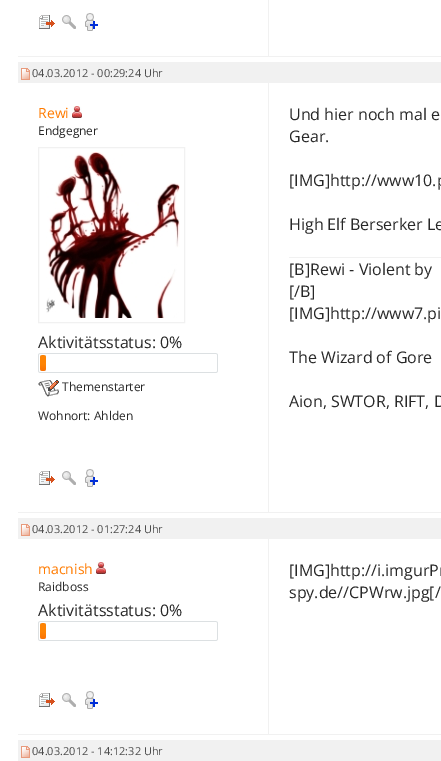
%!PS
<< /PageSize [441 761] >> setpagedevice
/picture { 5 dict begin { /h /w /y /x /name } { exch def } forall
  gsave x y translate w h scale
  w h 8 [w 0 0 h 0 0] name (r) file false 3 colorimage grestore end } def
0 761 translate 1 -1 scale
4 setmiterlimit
1 setgray
0 0 441 761 rectfill
0.945 setgray
18 56 423 1 rectfill
268 0 1 57 rectfill
(img1.rgb) 39 15 16 14 picture
(img2.rgb) 62 15 14 14 picture
(img3.rgb) 85 13 13 18 picture
18 512 423 1 rectfill
18 62 423 21 rectfill
(img4.rgb) 21 68 9 12 picture
/OpenSans-Regular [11 0 0 -11 0 0] selectfont
0.302 setgray
32 77 moveto (04.03.2012 - 00:29:24 Uhr) show
0.945 setgray
268 83 1 430 rectfill
(img1.rgb) 39 471 16 14 picture
(img2.rgb) 62 471 14 14 picture
(img3.rgb) 85 469 13 18 picture
/OpenSans-Regular [14 0 0 -14 0 0] selectfont
1 0.482 0 setrgbcolor
38 118 moveto (Rewi) show
(img5.rgb) 72 106 10 12 picture
/OpenSans-Regular [12 0 0 -12 0 0] selectfont
0.157 setgray
38 135 moveto (Endgegner) show
0.945 setgray
38.5 147.5 146 175 rectstroke
(img6.rgb) 46 152 134 166 picture
/OpenSans-Regular [16 0 0 -16 0 0] selectfont
0.157 setgray
38 348 moveto (Aktivitätsstatus: 0%) show
(img7.rgb) 38 353 180 20 picture
(img8.rgb) 40 355 3 16 picture
(img9.rgb) 43 355 3 16 picture
(img10.rgb) 38 380 21 17 picture
/OpenSans-Regular [12 0 0 -12 0 0] selectfont
62 391 moveto (Themenstarter) show
38 420 moveto (Wohnort: Ahlden) show
/OpenSans-Regular [16 0 0 -16 0 0] selectfont
289 120 moveto (Und hier noch mal e) show
289 142 moveto (Gear.) show
289 186 moveto ([IMG]http://www10.p) show
289 230 moveto (High Elf Berserker Le) show
0.945 setgray
289 257 152 1 rectfill
0.157 setgray
289 275 moveto ([B]Rewi - Violent by) show
289 297 moveto ([/B]) show
289 319 moveto ([IMG]http://www7.pi) show
289 363 moveto (The Wizard of Gore) show
289 407 moveto (Aion, SWTOR, RIFT, D) show
0.945 setgray
18 734 423 1 rectfill
18 518 423 21 rectfill
(img4.rgb) 21 524 9 12 picture
/OpenSans-Regular [11 0 0 -11 0 0] selectfont
0.302 setgray
32 533 moveto (04.03.2012 - 01:27:24 Uhr) show
0.945 setgray
268 538 1 197 rectfill
(img1.rgb) 39 693 16 14 picture
(img2.rgb) 62 693 14 14 picture
(img3.rgb) 85 691 13 18 picture
/OpenSans-Regular [14 0 0 -14 0 0] selectfont
1 0.482 0 setrgbcolor
38 574 moveto (macnish) show
(img5.rgb) 96 562 10 12 picture
/OpenSans-Regular [12 0 0 -12 0 0] selectfont
0.157 setgray
38 591 moveto (Raidboss) show
/OpenSans-Regular [16 0 0 -16 0 0] selectfont
38 616 moveto (Aktivitätsstatus: 0%) show
(img7.rgb) 38 621 180 20 picture
(img8.rgb) 40 623 3 16 picture
(img9.rgb) 43 623 3 16 picture
289 576 moveto ([IMG]http://i.imgurPr) show
289 598 moveto (spy.de//CPWrw.jpg[/) show
0.945 setgray
18 740 423 21 rectfill
(img4.rgb) 21 746 9 12 picture
/OpenSans-Regular [11 0 0 -11 0 0] selectfont
0.302 setgray
32 755 moveto (04.03.2012 - 14:12:32 Uhr) show
showpage
